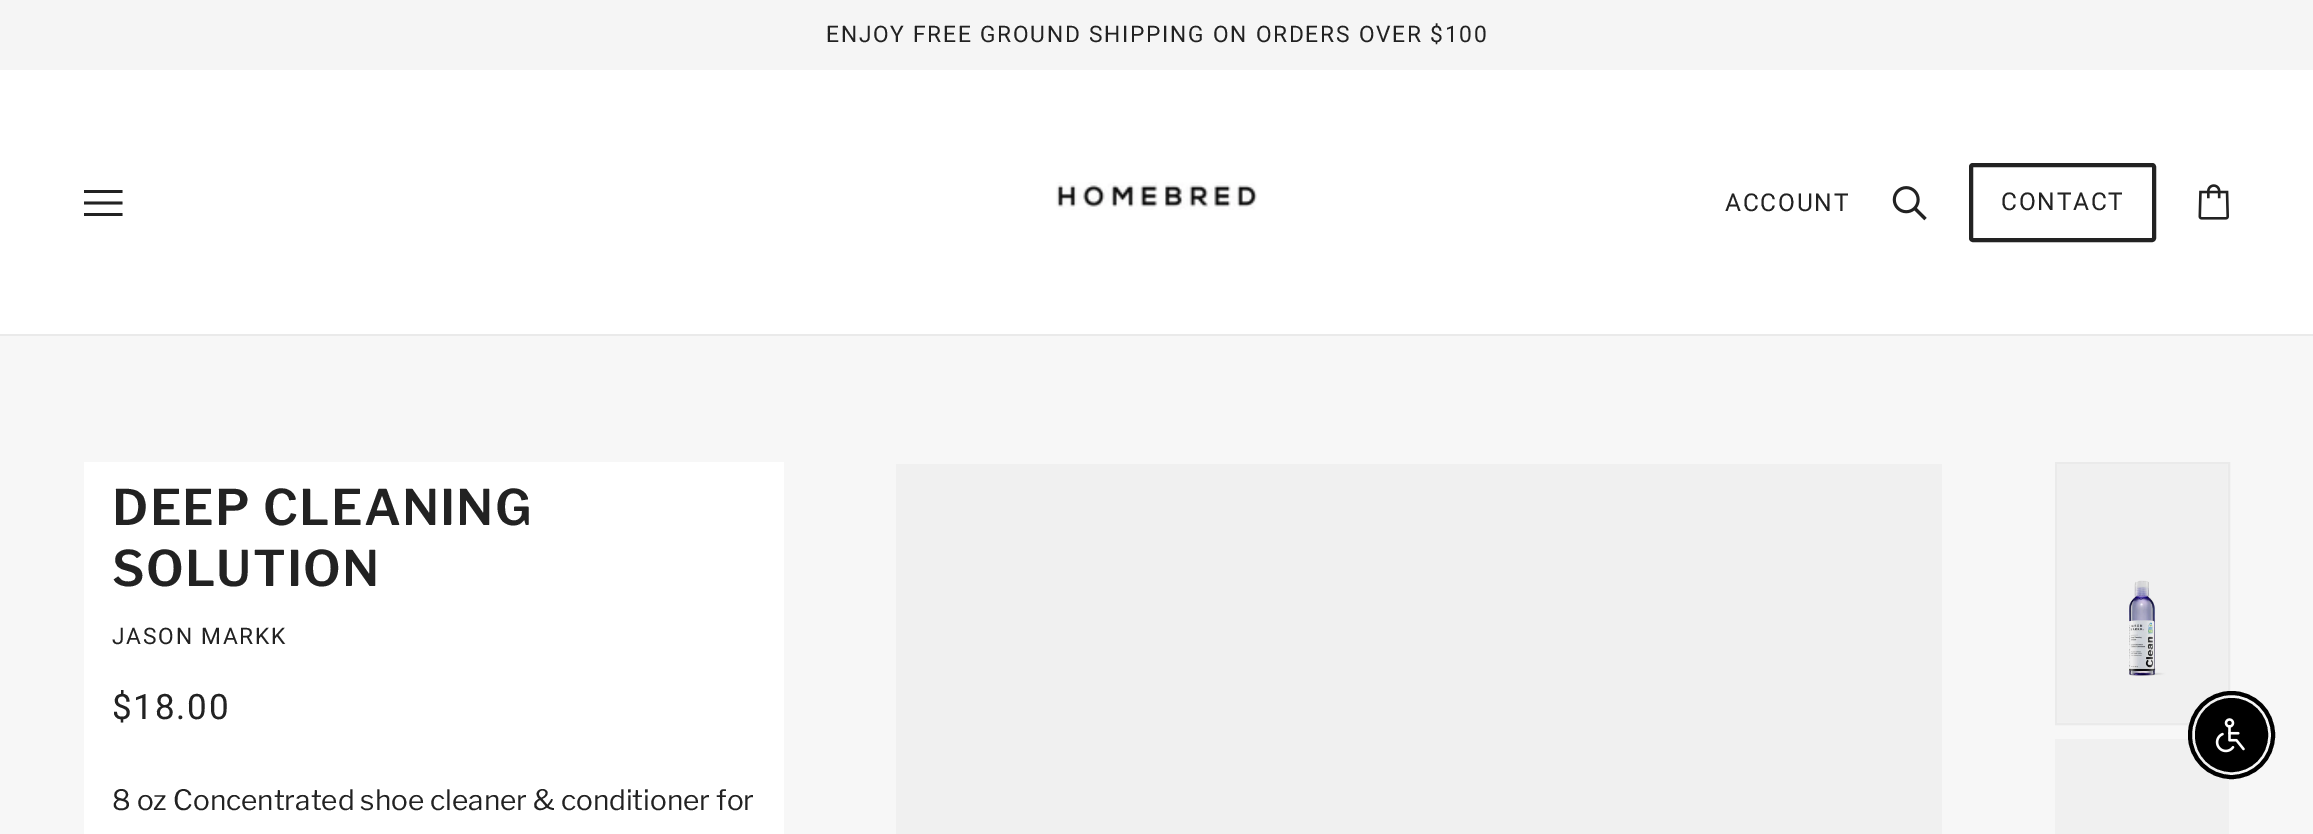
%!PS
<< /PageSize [2313 834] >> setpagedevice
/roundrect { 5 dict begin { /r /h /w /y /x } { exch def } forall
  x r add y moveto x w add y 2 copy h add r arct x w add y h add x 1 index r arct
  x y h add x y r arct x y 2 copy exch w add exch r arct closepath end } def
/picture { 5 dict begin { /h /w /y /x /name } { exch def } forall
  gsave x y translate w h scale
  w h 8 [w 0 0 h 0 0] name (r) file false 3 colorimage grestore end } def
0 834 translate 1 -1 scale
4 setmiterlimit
1 setgray
0 0 2313 834 rectfill
0.961 setgray
0 0 2313 70 rectfill
/Roboto-Regular [22.75 0 0 -22.75 0 0] selectfont
0.133 setgray
826 42 moveto 1.75 0 (ENJOY FREE GROUND SHIPPING ON ORDERS OVER $100) ashow
0.918 setgray
0 334 2313 2 rectfill
0.133 setgray
newpath 84 193 moveto 84 190 lineto 122.5 190 lineto 122.5 193 lineto closepath 84 204.5 moveto 84 201.5 lineto 122.5 201.5 lineto 122.5 204.5 lineto closepath 84 216 moveto 84 213 lineto 122.5 213 lineto 122.5 216 lineto closepath fill
(img1.rgb) 1056 182 201 28 picture
/Roboto-Regular [24.5 0 0 -24.5 0 0] selectfont
1725 211 moveto 1.75 0 (ACCOUNT) ashow
(img2.rgb) 1892 186 35 35 picture
4 setlinewidth
1971 165 183 75 2 roundrect stroke
2001 210 moveto 1.75 0 (CONTACT) ashow
(img3.rgb) 2198 184 31 36 picture
0.969 setgray
0 336 2313 498 rectfill
1 setgray
84 462 700 372 rectfill
/LibreFranklin-SemiBold [49 0 0 -49 0 0] selectfont
0.133 setgray
112 525 moveto 1.25 0 (DEEP CLEANING) ashow
112 586 moveto 1.25 0 (SOLUTION) ashow
/Roboto-Regular [22.75 0 0 -22.75 0 0] selectfont
112 644 moveto 1.75 0 (JASON MARKK) ashow
/Roboto-Regular [35 0 0 -35 0 0] selectfont
112 719 moveto 1.75 0 ($18.00) ashow
/LibreFranklin-Regular [28 0 0 -28 0 0] selectfont
112 810 moveto (8 oz Concentrated shoe cleaner & conditioner for) show
0.941 setgray
896 464 1046 370 rectfill
0.918 setgray
2 setlinewidth
2056 463 173 261 rectstroke
(img4.rgb) 2057 464 171 259 picture
0.941 setgray
2055 739 174 95 rectfill
0 setgray
4 setlinewidth
2190 693 83 84 41.5 roundrect stroke
2196 699 71 72 35.5 roundrect gsave fill grestore
2 setlinewidth
stroke
(img5.rgb) 2215 718 30 35 picture
showpage
